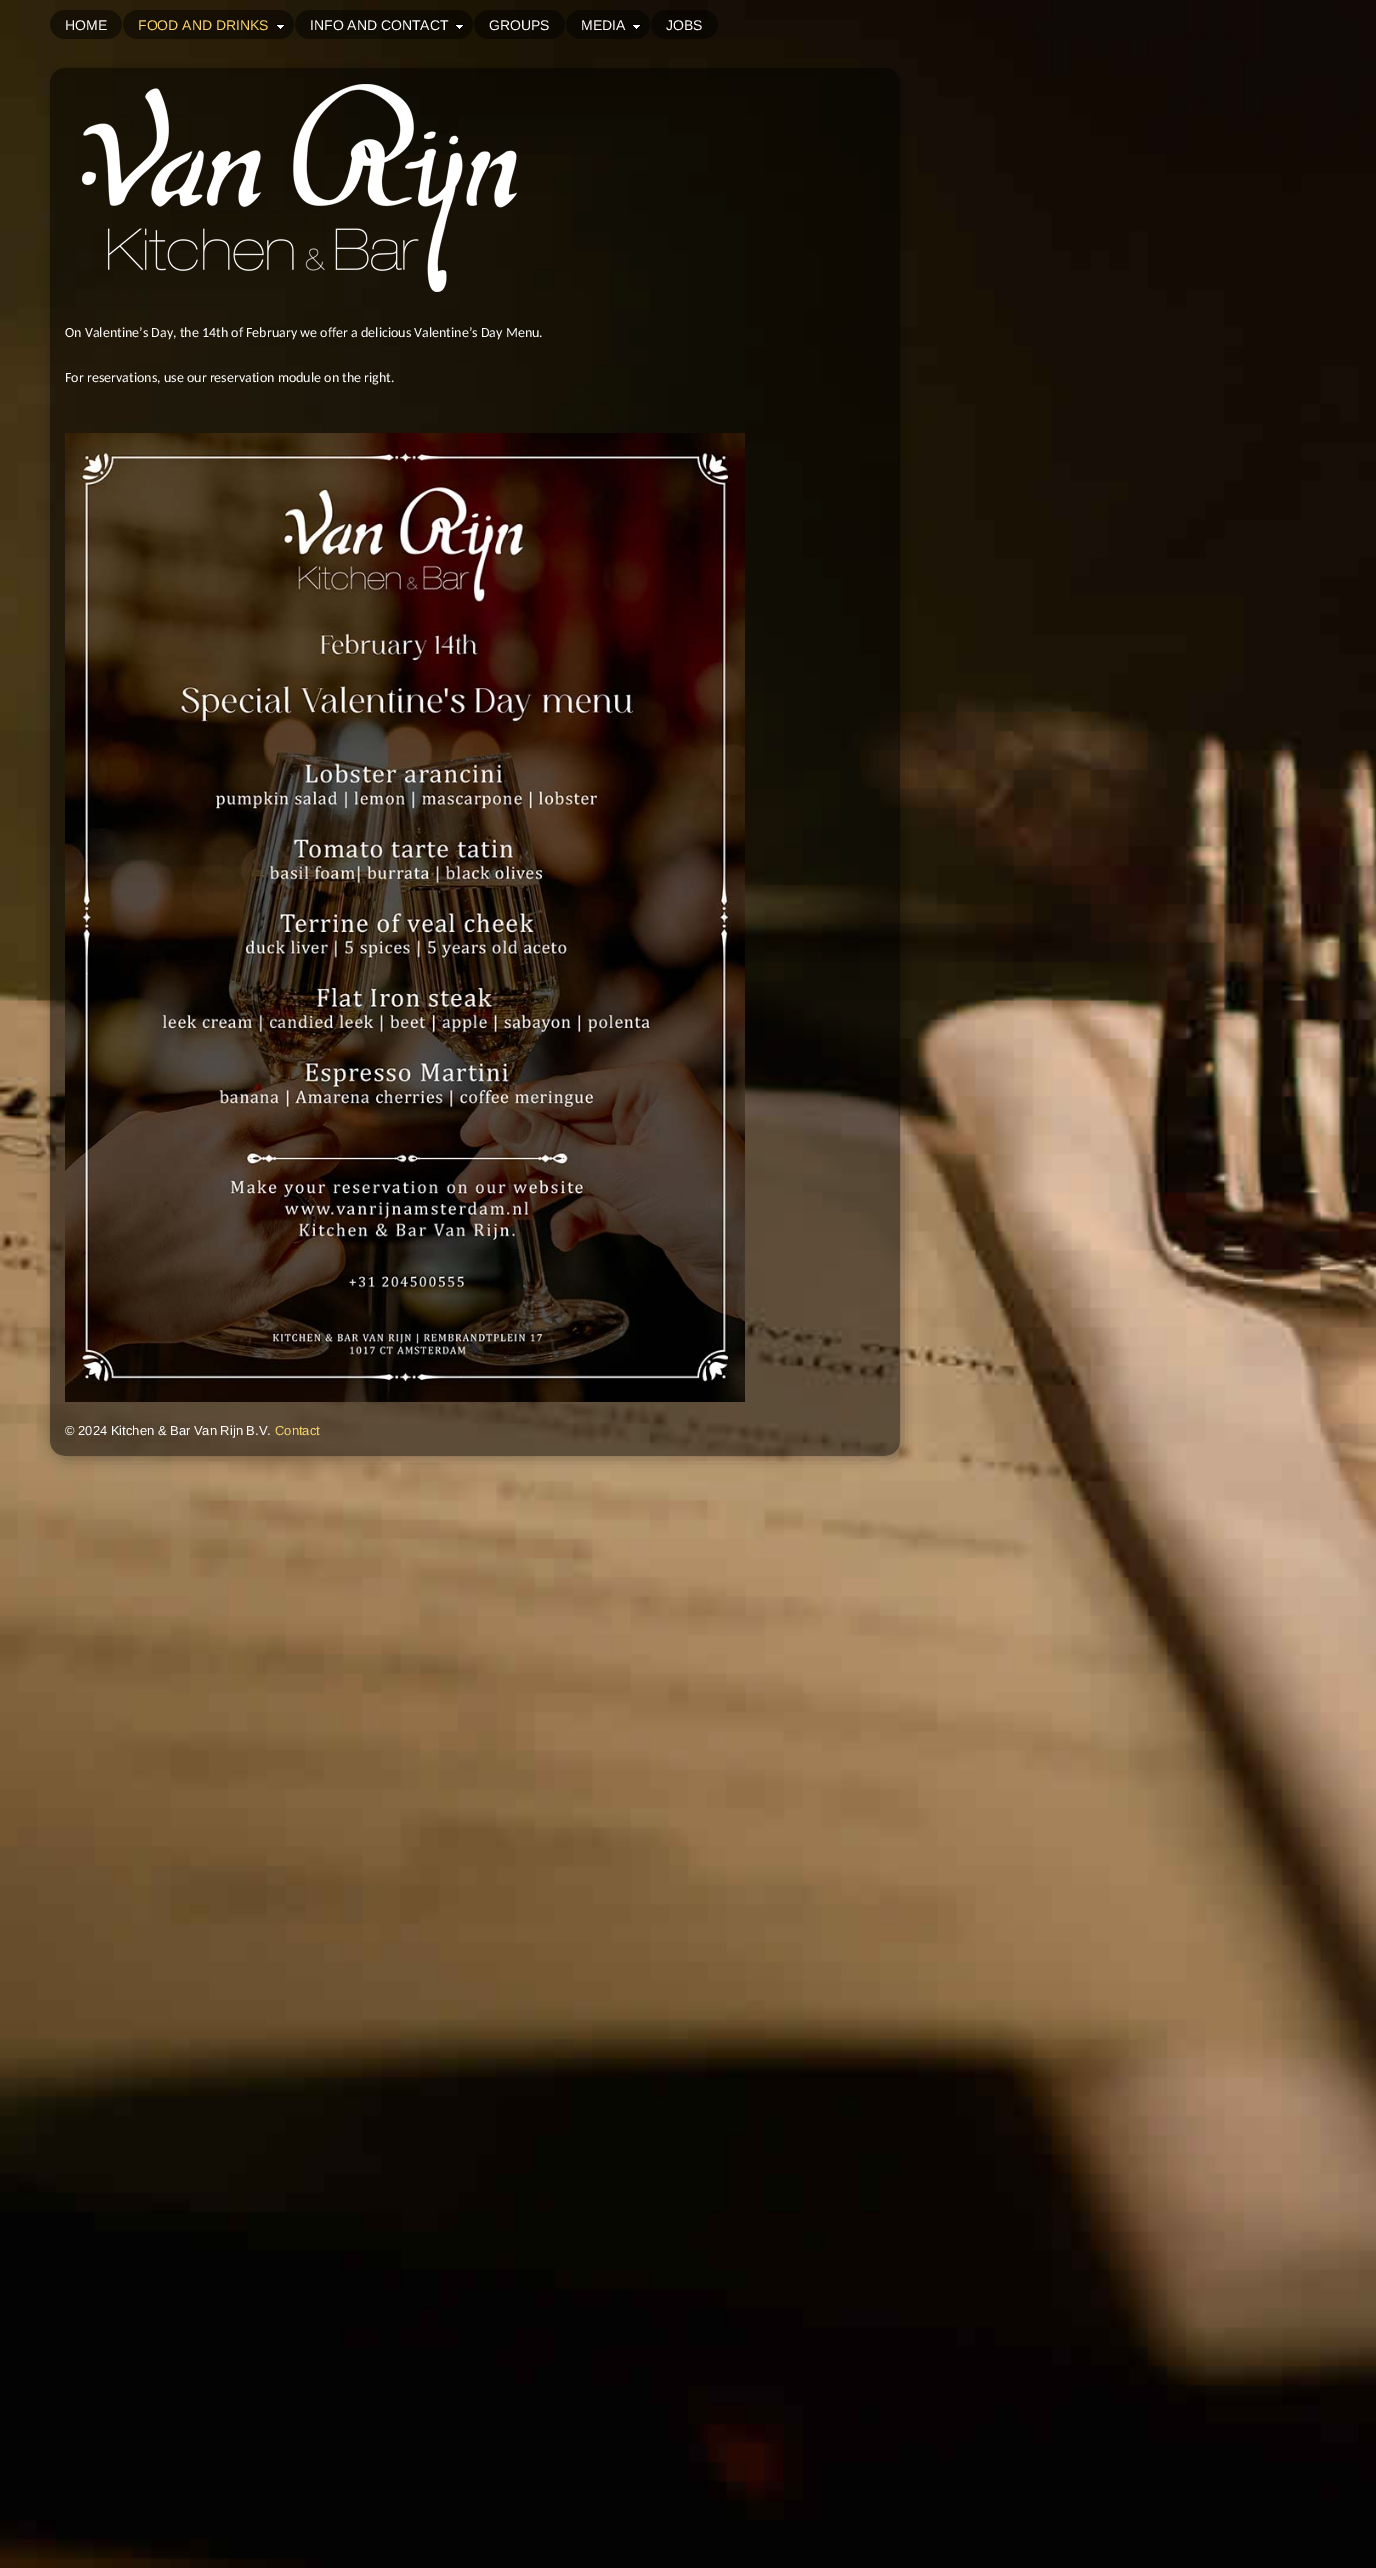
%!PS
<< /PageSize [1376 2568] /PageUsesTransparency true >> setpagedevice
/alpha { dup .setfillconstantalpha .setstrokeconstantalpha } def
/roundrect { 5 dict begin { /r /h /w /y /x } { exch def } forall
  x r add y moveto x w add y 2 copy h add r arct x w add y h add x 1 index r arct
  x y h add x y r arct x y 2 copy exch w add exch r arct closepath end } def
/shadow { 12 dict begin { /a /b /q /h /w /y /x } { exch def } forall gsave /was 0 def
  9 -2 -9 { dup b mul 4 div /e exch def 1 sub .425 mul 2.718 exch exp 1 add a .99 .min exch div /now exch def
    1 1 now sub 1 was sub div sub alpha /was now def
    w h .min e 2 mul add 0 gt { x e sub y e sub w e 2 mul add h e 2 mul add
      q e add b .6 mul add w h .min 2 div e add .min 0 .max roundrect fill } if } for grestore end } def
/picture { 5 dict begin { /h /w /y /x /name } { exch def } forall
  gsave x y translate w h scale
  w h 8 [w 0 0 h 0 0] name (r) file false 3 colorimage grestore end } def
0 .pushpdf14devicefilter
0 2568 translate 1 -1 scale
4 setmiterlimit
1 setgray
0 0 1376 2568 rectfill
(img1.rgb) 0 0 1376 2568 picture
(img2.rgb) 50 10 72 29 picture
/LiberationSans-Regular [14 0 0 -14 0 0] selectfont
65 30 moveto (HOME) show
(img3.rgb) 123 10 171 29 picture
0.973 0.824 0.424 setrgbcolor
138 30 moveto (FOOD AND DRINKS) show
(img4.rgb) 276 24 9 6 picture
(img5.rgb) 295 10 178 29 picture
1 setgray
310 30 moveto (INFO AND CONTACT) show
(img6.rgb) 455 24 9 6 picture
(img7.rgb) 474 10 91 29 picture
489 30 moveto (GROUPS) show
(img8.rgb) 566 10 84 29 picture
581 30 moveto (MEDIA) show
(img9.rgb) 632 24 9 6 picture
(img10.rgb) 651 10 67 29 picture
666 30 moveto (JOBS) show
gsave
newpath 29 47 moveto 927 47 lineto 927 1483 lineto 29 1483 lineto closepath 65 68 moveto 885 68 lineto 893.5 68 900 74.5 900 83 curveto 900 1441 lineto 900 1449.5 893.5 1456 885 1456 curveto 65 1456 lineto 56.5 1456 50 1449.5 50 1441 curveto 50 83 lineto 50 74.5 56.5 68 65 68 curveto closepath eoclip newpath
0 setgray
53 71 850 1388 15 7.5 0.3 shadow
grestore
(img11.rgb) 50 68 850 1388 picture
(img12.rgb) 82 84 435 208 picture
/Carlito-Regular [14 0 0 -14 0 0] selectfont
65 337 moveto (On Valentine’s Day, the 14th of February we offer a delicious Valentine’s Day Menu.) show
65 382 moveto (For reservations, use our reservation module on the right.) show
(img13.rgb) 65 433 680 969 picture
/LiberationSans-Regular [13 0 0 -13 0 0] selectfont
65 1435 moveto (© 2024 Kitchen & Bar Van Rijn B.V.) show
0.973 0.824 0.424 setrgbcolor
275 1435 moveto (Contact) show
.poppdf14devicefilter showpage
